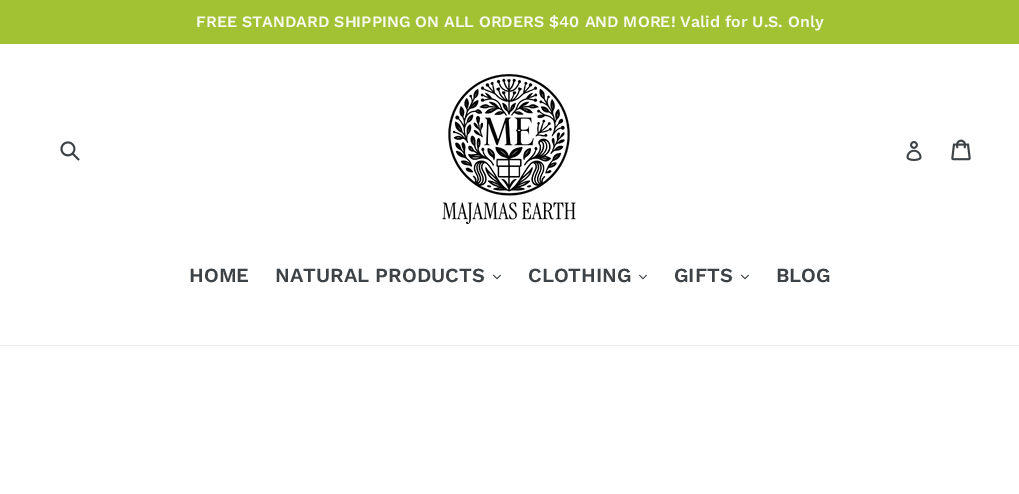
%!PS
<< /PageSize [1019 494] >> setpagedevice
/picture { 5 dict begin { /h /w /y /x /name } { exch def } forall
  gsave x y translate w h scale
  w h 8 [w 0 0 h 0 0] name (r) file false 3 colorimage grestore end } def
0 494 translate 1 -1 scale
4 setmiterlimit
1 setgray
0 0 1019 494 rectfill
0.635 0.761 0.2 setrgbcolor
0 0 1019 44 rectfill
/WorkSans-SemiBold [16 0 0 -16 0 0] selectfont
0.965 0.976 0.922 setrgbcolor
196 27 moveto (FREE STANDARD SHIPPING ON ALL ORDERS $40 AND MORE! Valid for U.S. Only) show
(img1.rgb) 60 141 20 20 picture
(img2.rgb) 442 74 134 150 picture
(img3.rgb) 906 141 16 20 picture
(img4.rgb) 951 139 20 22 picture
0.91 0.914 0.922 setrgbcolor
0 345 1019 1 rectfill
/WorkSans-SemiBold [20 0 0 -20 0 0] selectfont
0.239 0.259 0.275 setrgbcolor
189 282 moveto (HOME) show
275 282 moveto (NATURAL PRODUCTS) show
(img5.rgb) 493 274 8 6 picture
528 282 moveto (CLOTHING) show
(img5.rgb) 639 274 8 6 picture
674 282 moveto (GIFTS) show
(img5.rgb) 741 274 8 6 picture
776 282 moveto (BLOG) show
showpage
